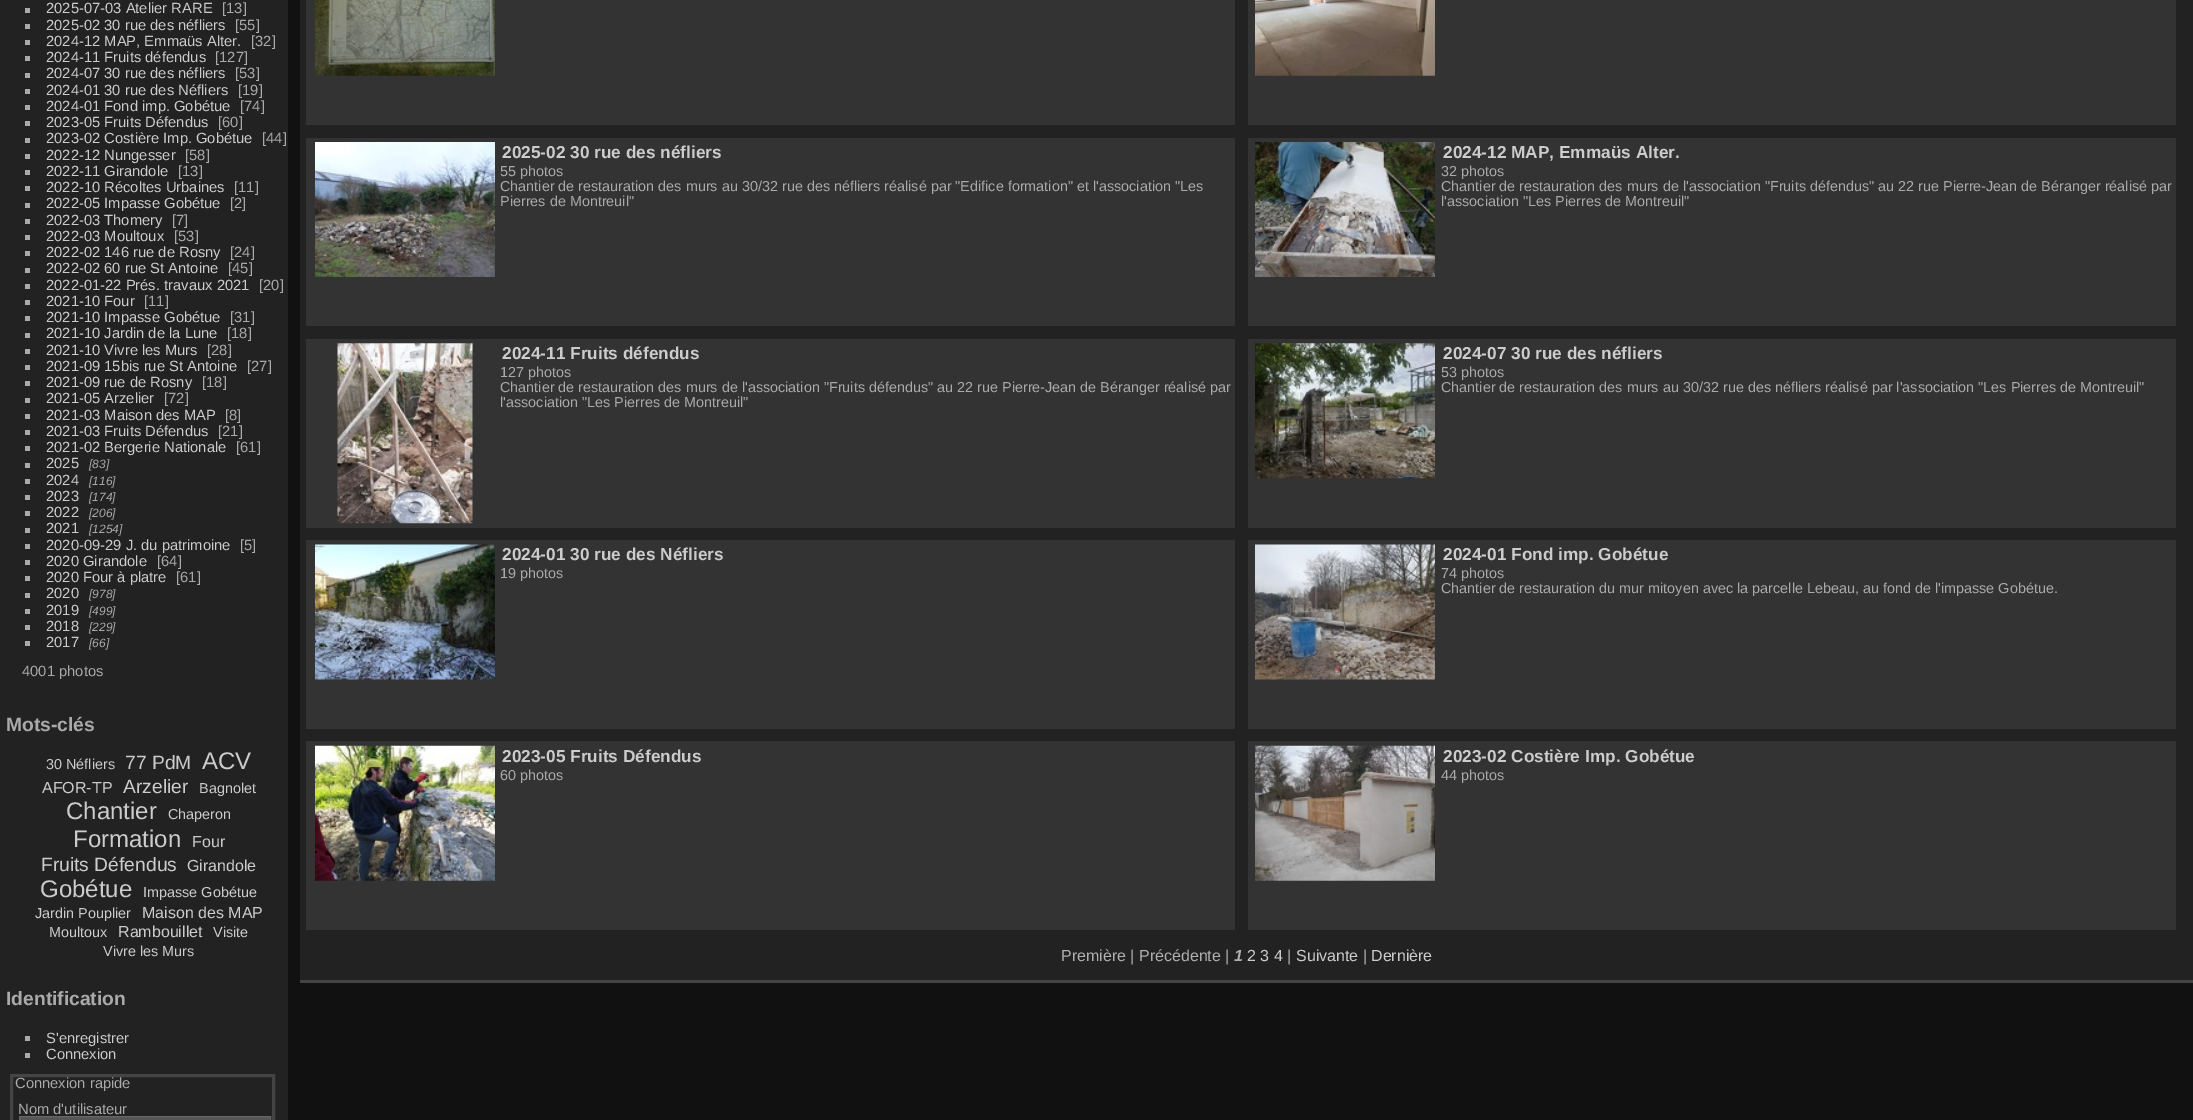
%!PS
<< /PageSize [2193 1120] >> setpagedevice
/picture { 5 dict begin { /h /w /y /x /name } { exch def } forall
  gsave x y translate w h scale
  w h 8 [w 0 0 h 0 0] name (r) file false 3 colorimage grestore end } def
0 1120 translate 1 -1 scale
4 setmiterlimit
0.067 setgray
0 0 2193 1120 rectfill
0.133 setgray
0 0 288 1120 rectfill
0.667 setgray
25 8 5 5 rectfill
/LiberationSans-Regular [14.75 0 0 -14.75 0 0] selectfont
0.8 setgray
46 13 moveto (2025-07-03 Atelier RARE) show
0.667 setgray
222 13 moveto ([13]) show
25 24 5 5 rectfill
0.8 setgray
46 30 moveto (2025-02 30 rue des néfliers) show
0.667 setgray
235 30 moveto ([55]) show
25 40 5 5 rectfill
0.8 setgray
46 46 moveto (2024-12 MAP, Emmaüs Alter.) show
0.667 setgray
251 46 moveto ([32]) show
25 56 5 5 rectfill
0.8 setgray
46 62 moveto (2024-11 Fruits défendus) show
0.667 setgray
215 62 moveto ([127]) show
25 73 5 5 rectfill
0.8 setgray
46 78 moveto (2024-07 30 rue des néfliers) show
0.667 setgray
235 78 moveto ([53]) show
25 89 5 5 rectfill
0.8 setgray
46 95 moveto (2024-01 30 rue des Néfliers) show
0.667 setgray
238 95 moveto ([19]) show
25 105 5 5 rectfill
0.8 setgray
46 111 moveto (2024-01 Fond imp. Gobétue) show
0.667 setgray
240 111 moveto ([74]) show
25 121 5 5 rectfill
0.8 setgray
46 127 moveto (2023-05 Fruits Défendus) show
0.667 setgray
218 127 moveto ([60]) show
25 138 5 5 rectfill
0.8 setgray
46 143 moveto (2023-02 Costière Imp. Gobétue) show
0.667 setgray
262 143 moveto ([44]) show
25 154 5 5 rectfill
0.8 setgray
46 160 moveto (2022-12 Nungesser) show
0.667 setgray
185 160 moveto ([58]) show
25 170 5 5 rectfill
0.8 setgray
46 176 moveto (2022-11 Girandole) show
0.667 setgray
178 176 moveto ([13]) show
25 186 5 5 rectfill
0.8 setgray
46 192 moveto (2022-10 Récoltes Urbaines) show
0.667 setgray
234 192 moveto ([11]) show
25 203 5 5 rectfill
0.8 setgray
46 208 moveto (2022-05 Impasse Gobétue) show
0.667 setgray
230 208 moveto ([2]) show
25 219 5 5 rectfill
0.8 setgray
46 225 moveto (2022-03 Thomery) show
0.667 setgray
172 225 moveto ([7]) show
25 235 5 5 rectfill
0.8 setgray
46 241 moveto (2022-03 Moultoux) show
0.667 setgray
174 241 moveto ([53]) show
25 251 5 5 rectfill
0.8 setgray
46 257 moveto (2022-02 146 rue de Rosny) show
0.667 setgray
230 257 moveto ([24]) show
25 268 5 5 rectfill
0.8 setgray
46 273 moveto (2022-02 60 rue St Antoine) show
0.667 setgray
228 273 moveto ([45]) show
25 284 5 5 rectfill
0.8 setgray
46 290 moveto (2022-01-22 Prés. travaux 2021) show
0.667 setgray
259 290 moveto ([20]) show
25 300 5 5 rectfill
0.8 setgray
46 306 moveto (2021-10 Four) show
0.667 setgray
144 306 moveto ([11]) show
25 316 5 5 rectfill
0.8 setgray
46 322 moveto (2021-10 Impasse Gobétue) show
0.667 setgray
230 322 moveto ([31]) show
25 333 5 5 rectfill
0.8 setgray
46 338 moveto (2021-10 Jardin de la Lune) show
0.667 setgray
227 338 moveto ([18]) show
25 349 5 5 rectfill
0.8 setgray
46 355 moveto (2021-10 Vivre les Murs) show
0.667 setgray
207 355 moveto ([28]) show
25 365 5 5 rectfill
0.8 setgray
46 371 moveto (2021-09 15bis rue St Antoine) show
0.667 setgray
247 371 moveto ([27]) show
25 381 5 5 rectfill
0.8 setgray
46 387 moveto (2021-09 rue de Rosny) show
0.667 setgray
202 387 moveto ([18]) show
25 398 5 5 rectfill
0.8 setgray
46 403 moveto (2021-05 Arzelier) show
0.667 setgray
164 403 moveto ([72]) show
25 414 5 5 rectfill
0.8 setgray
46 420 moveto (2021-03 Maison des MAP) show
0.667 setgray
225 420 moveto ([8]) show
25 430 5 5 rectfill
0.8 setgray
46 436 moveto (2021-03 Fruits Défendus) show
0.667 setgray
218 436 moveto ([21]) show
25 446 5 5 rectfill
0.8 setgray
46 452 moveto (2021-02 Bergerie Nationale) show
0.667 setgray
236 452 moveto ([61]) show
25 463 5 5 rectfill
0.8 setgray
46 468 moveto (2025) show
/LiberationSans-Italic [12 0 0 -12 0 0] selectfont
0.667 setgray
89 468 moveto ([83]) show
25 479 5 5 rectfill
/LiberationSans-Regular [14.75 0 0 -14.75 0 0] selectfont
0.8 setgray
46 485 moveto (2024) show
/LiberationSans-Italic [12 0 0 -12 0 0] selectfont
0.667 setgray
89 485 moveto ([116]) show
25 495 5 5 rectfill
/LiberationSans-Regular [14.75 0 0 -14.75 0 0] selectfont
0.8 setgray
46 501 moveto (2023) show
/LiberationSans-Italic [12 0 0 -12 0 0] selectfont
0.667 setgray
89 501 moveto ([174]) show
25 511 5 5 rectfill
/LiberationSans-Regular [14.75 0 0 -14.75 0 0] selectfont
0.8 setgray
46 517 moveto (2022) show
/LiberationSans-Italic [12 0 0 -12 0 0] selectfont
0.667 setgray
89 517 moveto ([206]) show
25 528 5 5 rectfill
/LiberationSans-Regular [14.75 0 0 -14.75 0 0] selectfont
0.8 setgray
46 533 moveto (2021) show
/LiberationSans-Italic [12 0 0 -12 0 0] selectfont
0.667 setgray
89 533 moveto ([1254]) show
25 544 5 5 rectfill
/LiberationSans-Regular [14.75 0 0 -14.75 0 0] selectfont
0.8 setgray
46 550 moveto (2020-09-29 J. du patrimoine) show
0.667 setgray
240 550 moveto ([5]) show
25 560 5 5 rectfill
0.8 setgray
46 566 moveto (2020 Girandole) show
0.667 setgray
157 566 moveto ([64]) show
25 576 5 5 rectfill
0.8 setgray
46 582 moveto (2020 Four à platre) show
0.667 setgray
176 582 moveto ([61]) show
25 593 5 5 rectfill
0.8 setgray
46 598 moveto (2020) show
/LiberationSans-Italic [12 0 0 -12 0 0] selectfont
0.667 setgray
89 598 moveto ([978]) show
25 609 5 5 rectfill
/LiberationSans-Regular [14.75 0 0 -14.75 0 0] selectfont
0.8 setgray
46 615 moveto (2019) show
/LiberationSans-Italic [12 0 0 -12 0 0] selectfont
0.667 setgray
89 615 moveto ([499]) show
25 625 5 5 rectfill
/LiberationSans-Regular [14.75 0 0 -14.75 0 0] selectfont
0.8 setgray
46 631 moveto (2018) show
/LiberationSans-Italic [12 0 0 -12 0 0] selectfont
0.667 setgray
89 631 moveto ([229]) show
25 641 5 5 rectfill
/LiberationSans-Regular [14.75 0 0 -14.75 0 0] selectfont
0.8 setgray
46 647 moveto (2017) show
/LiberationSans-Italic [12 0 0 -12 0 0] selectfont
0.667 setgray
89 647 moveto ([66]) show
/LiberationSans-Regular [14.75 0 0 -14.75 0 0] selectfont
22 676 moveto (4001 photos) show
/LiberationSans-Bold [19.25 0 0 -19.25 0 0] selectfont
6 731 moveto (Mots-clés) show
/LiberationSans-Regular [14.4 0 0 -14.4 0 0] selectfont
0.8 setgray
46 769 moveto (30 Néfliers) show
/LiberationSans-Regular [19.25 0 0 -19.25 0 0] selectfont
125 769 moveto (77 PdM) show
/LiberationSans-Regular [24 0 0 -24 0 0] selectfont
202 769 moveto (ACV) show
/LiberationSans-Regular [16 0 0 -16 0 0] selectfont
42 793 moveto (AFOR-TP) show
/LiberationSans-Regular [19.25 0 0 -19.25 0 0] selectfont
123 793 moveto (Arzelier) show
/LiberationSans-Regular [14.4 0 0 -14.4 0 0] selectfont
199 793 moveto (Bagnolet) show
/LiberationSans-Regular [24 0 0 -24 0 0] selectfont
66 819 moveto (Chantier) show
/LiberationSans-Regular [14.4 0 0 -14.4 0 0] selectfont
168 819 moveto (Chaperon) show
/LiberationSans-Regular [24 0 0 -24 0 0] selectfont
73 847 moveto (Formation) show
/LiberationSans-Regular [16 0 0 -16 0 0] selectfont
192 847 moveto (Four) show
/LiberationSans-Regular [19.25 0 0 -19.25 0 0] selectfont
41 871 moveto (Fruits Défendus) show
/LiberationSans-Regular [16 0 0 -16 0 0] selectfont
187 871 moveto (Girandole) show
/LiberationSans-Regular [24 0 0 -24 0 0] selectfont
40 897 moveto (Gobétue) show
/LiberationSans-Regular [14.4 0 0 -14.4 0 0] selectfont
143 897 moveto (Impasse Gobétue) show
35 918 moveto (Jardin Pouplier) show
/LiberationSans-Regular [16 0 0 -16 0 0] selectfont
142 918 moveto (Maison des MAP) show
/LiberationSans-Regular [14.4 0 0 -14.4 0 0] selectfont
49 937 moveto (Moultoux) show
/LiberationSans-Regular [16 0 0 -16 0 0] selectfont
118 937 moveto (Rambouillet) show
/LiberationSans-Regular [14.4 0 0 -14.4 0 0] selectfont
213 937 moveto (Visite) show
103 956 moveto (Vivre les Murs) show
/LiberationSans-Bold [19.25 0 0 -19.25 0 0] selectfont
0.667 setgray
6 1005 moveto (Identification) show
25 1036 5 5 rectfill
/LiberationSans-Regular [14.75 0 0 -14.75 0 0] selectfont
0.8 setgray
46 1043 moveto (S'enregistrer) show
0.667 setgray
25 1053 5 5 rectfill
0.8 setgray
46 1059 moveto (Connexion) show
0.267 setgray
3 setlinewidth
11.5 1075.5 262 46 rectstroke
0.667 setgray
15 1088 moveto (Connexion rapide) show
18 1114 moveto (Nom d'utilisateur) show
0.333 setgray
newpath 19.5 1116.5 moveto 270.5 1116.5 lineto 270.5 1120.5 lineto 19.5 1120.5 lineto closepath gsave fill grestore
0.4 setgray
1 setlinewidth
stroke
0.133 setgray
300 0 1893 980 rectfill
0.267 setgray
300 980 1893 3 rectfill
0.2 setgray
306 0 929 125 rectfill
(img1.rgb) 315 0 180 76 picture
1248 0 928 125 rectfill
(img2.rgb) 1255 0 180 76 picture
306 138 929 188 rectfill
(img3.rgb) 315 142 180 135 picture
/LiberationSans-Bold [17.25 0 0 -17.25 0 0] selectfont
0.8 setgray
502 158 moveto (2025-02 30 rue des néfliers) show
/LiberationSans-Regular [14.4 0 0 -14.4 0 0] selectfont
0.667 setgray
500 176 moveto (55 photos) show
500 191 moveto (Chantier de restauration des murs au 30/32 rue des néfliers réalisé par "Edifice formation" et l'association "Les) show
500 206 moveto (Pierres de Montreuil") show
0.2 setgray
1248 138 928 188 rectfill
(img4.rgb) 1255 142 180 135 picture
/LiberationSans-Bold [17.25 0 0 -17.25 0 0] selectfont
0.8 setgray
1443 158 moveto (2024-12 MAP, Emmaüs Alter.) show
/LiberationSans-Regular [14.4 0 0 -14.4 0 0] selectfont
0.667 setgray
1441 176 moveto (32 photos) show
1441 191 moveto (Chantier de restauration des murs de l'association "Fruits défendus" au 22 rue Pierre-Jean de Béranger réalisé par) show
1441 206 moveto (l'association "Les Pierres de Montreuil") show
0.2 setgray
306 339 929 189 rectfill
(img5.rgb) 337 343 136 181 picture
/LiberationSans-Bold [17.25 0 0 -17.25 0 0] selectfont
0.8 setgray
502 359 moveto (2024-11 Fruits défendus) show
/LiberationSans-Regular [14.4 0 0 -14.4 0 0] selectfont
0.667 setgray
500 377 moveto (127 photos) show
500 392 moveto (Chantier de restauration des murs de l'association "Fruits défendus" au 22 rue Pierre-Jean de Béranger réalisé par) show
500 407 moveto (l'association "Les Pierres de Montreuil") show
0.2 setgray
1248 339 928 189 rectfill
(img6.rgb) 1255 343 180 136 picture
/LiberationSans-Bold [17.25 0 0 -17.25 0 0] selectfont
0.8 setgray
1443 359 moveto (2024-07 30 rue des néfliers) show
/LiberationSans-Regular [14.4 0 0 -14.4 0 0] selectfont
0.667 setgray
1441 377 moveto (53 photos) show
1441 392 moveto (Chantier de restauration des murs au 30/32 rue des néfliers réalisé par l'association "Les Pierres de Montreuil") show
0.2 setgray
306 540 929 189 rectfill
(img7.rgb) 315 544 180 136 picture
/LiberationSans-Bold [17.25 0 0 -17.25 0 0] selectfont
0.8 setgray
502 560 moveto (2024-01 30 rue des Néfliers) show
/LiberationSans-Regular [14.4 0 0 -14.4 0 0] selectfont
0.667 setgray
500 578 moveto (19 photos) show
0.2 setgray
1248 540 928 189 rectfill
(img8.rgb) 1255 544 180 136 picture
/LiberationSans-Bold [17.25 0 0 -17.25 0 0] selectfont
0.8 setgray
1443 560 moveto (2024-01 Fond imp. Gobétue) show
/LiberationSans-Regular [14.4 0 0 -14.4 0 0] selectfont
0.667 setgray
1441 578 moveto (74 photos) show
1441 593 moveto (Chantier de restauration du mur mitoyen avec la parcelle Lebeau, au fond de l'impasse Gobétue.) show
0.2 setgray
306 741 929 189 rectfill
(img9.rgb) 315 745 180 136 picture
/LiberationSans-Bold [17.25 0 0 -17.25 0 0] selectfont
0.8 setgray
502 762 moveto (2023-05 Fruits Défendus) show
/LiberationSans-Regular [14.4 0 0 -14.4 0 0] selectfont
0.667 setgray
500 780 moveto (60 photos) show
0.2 setgray
1248 741 928 189 rectfill
(img10.rgb) 1255 745 180 136 picture
/LiberationSans-Bold [17.25 0 0 -17.25 0 0] selectfont
0.8 setgray
1443 762 moveto (2023-02 Costière Imp. Gobétue) show
/LiberationSans-Regular [14.4 0 0 -14.4 0 0] selectfont
0.667 setgray
1441 780 moveto (44 photos) show
/LiberationSans-Regular [16 0 0 -16 0 0] selectfont
0.69 setgray
1061 961 moveto (Première | Précédente |) show
/LiberationSans-BoldItalic [16 0 0 -16 0 0] selectfont
1234 961 moveto (1) show
/LiberationSans-Regular [16 0 0 -16 0 0] selectfont
0.8 setgray
1247 961 moveto (2 3 4) show
0.69 setgray
1287 961 moveto (|) show
0.8 setgray
1296 961 moveto (Suivante) show
0.69 setgray
1363 961 moveto (|) show
0.8 setgray
1371 961 moveto (Dernière) show
showpage
